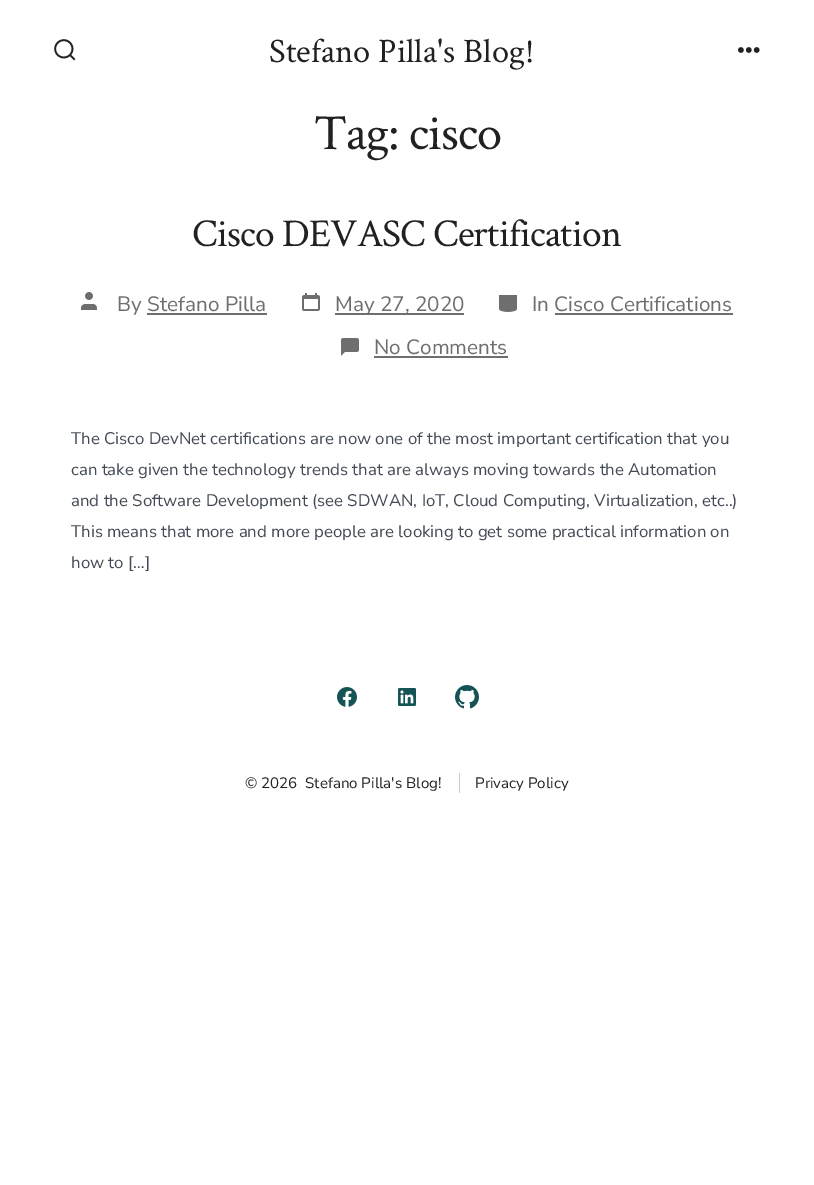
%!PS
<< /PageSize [814 1185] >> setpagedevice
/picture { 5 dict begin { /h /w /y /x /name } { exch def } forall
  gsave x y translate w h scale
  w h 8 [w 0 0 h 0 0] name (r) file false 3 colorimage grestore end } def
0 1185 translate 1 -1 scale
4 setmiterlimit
1 setgray
0 0 814 1185 rectfill
(img1.rgb) 54 39 22 22 picture
/CrimsonText-Regular [34.5 0 0 -34.5 0 0] selectfont
0.129 setgray
269 62 moveto (Stefano Pilla's Blog!) show
(img2.rgb) 738 47 22 6 picture
/CrimsonText-Regular [50.5 0 0 -50.5 0 0] selectfont
314 149 moveto -1 0 (Tag: cisco) ashow
/CrimsonText-Regular [39.6 0 0 -39.6 0 0] selectfont
192 246 moveto -0.8 0 (Cisco DEVASC Certification) ashow
(img3.rgb) 81 292 16 18 picture
/NunitoSans-Regular [20.75 0 0 -20.75 0 0] selectfont
0.431 setgray
117 311 moveto (By Stefano Pilla) show
147 313 120 2 rectfill
(img4.rgb) 302 293 18 18 picture
335 313 129 2 rectfill
335 311 moveto (May 27, 2020) show
(img5.rgb) 499 295 18 17 picture
532 311 moveto (In Cisco Certifications) show
555 313 178 2 rectfill
(img6.rgb) 341 338 18 18 picture
374 354 moveto (No Comments) show
374 356 134 2 rectfill
/NunitoSans-Regular [16.8 0 0 -16.8 0 0] selectfont
0.263 0.29 0.337 setrgbcolor
71 444 moveto (The Cisco DevNet certifications are now one of the most important certification that you) show
71 475 moveto (can take given the technology trends that are always moving towards the Automation) show
71 506 moveto (and the Software Development \(see SDWAN, IoT, Cloud Computing, Virtualization, etc..\)) show
71 537 moveto (This means that more and more people are looking to get some practical information on) show
71 568 moveto (how to […]) show
(img7.rgb) 337 687 20 20 picture
(img8.rgb) 398 688 18 18 picture
(img9.rgb) 455 685 24 24 picture
/NunitoSans-Regular [15.1 0 0 -15.1 0 0] selectfont
0.129 setgray
245 788 moveto (© 2026) show
305 788 moveto (Stefano Pilla's Blog!) show
0.784 setgray
459 773 1 20 rectfill
0.129 setgray
475 788 moveto (Privacy Policy) show
showpage
